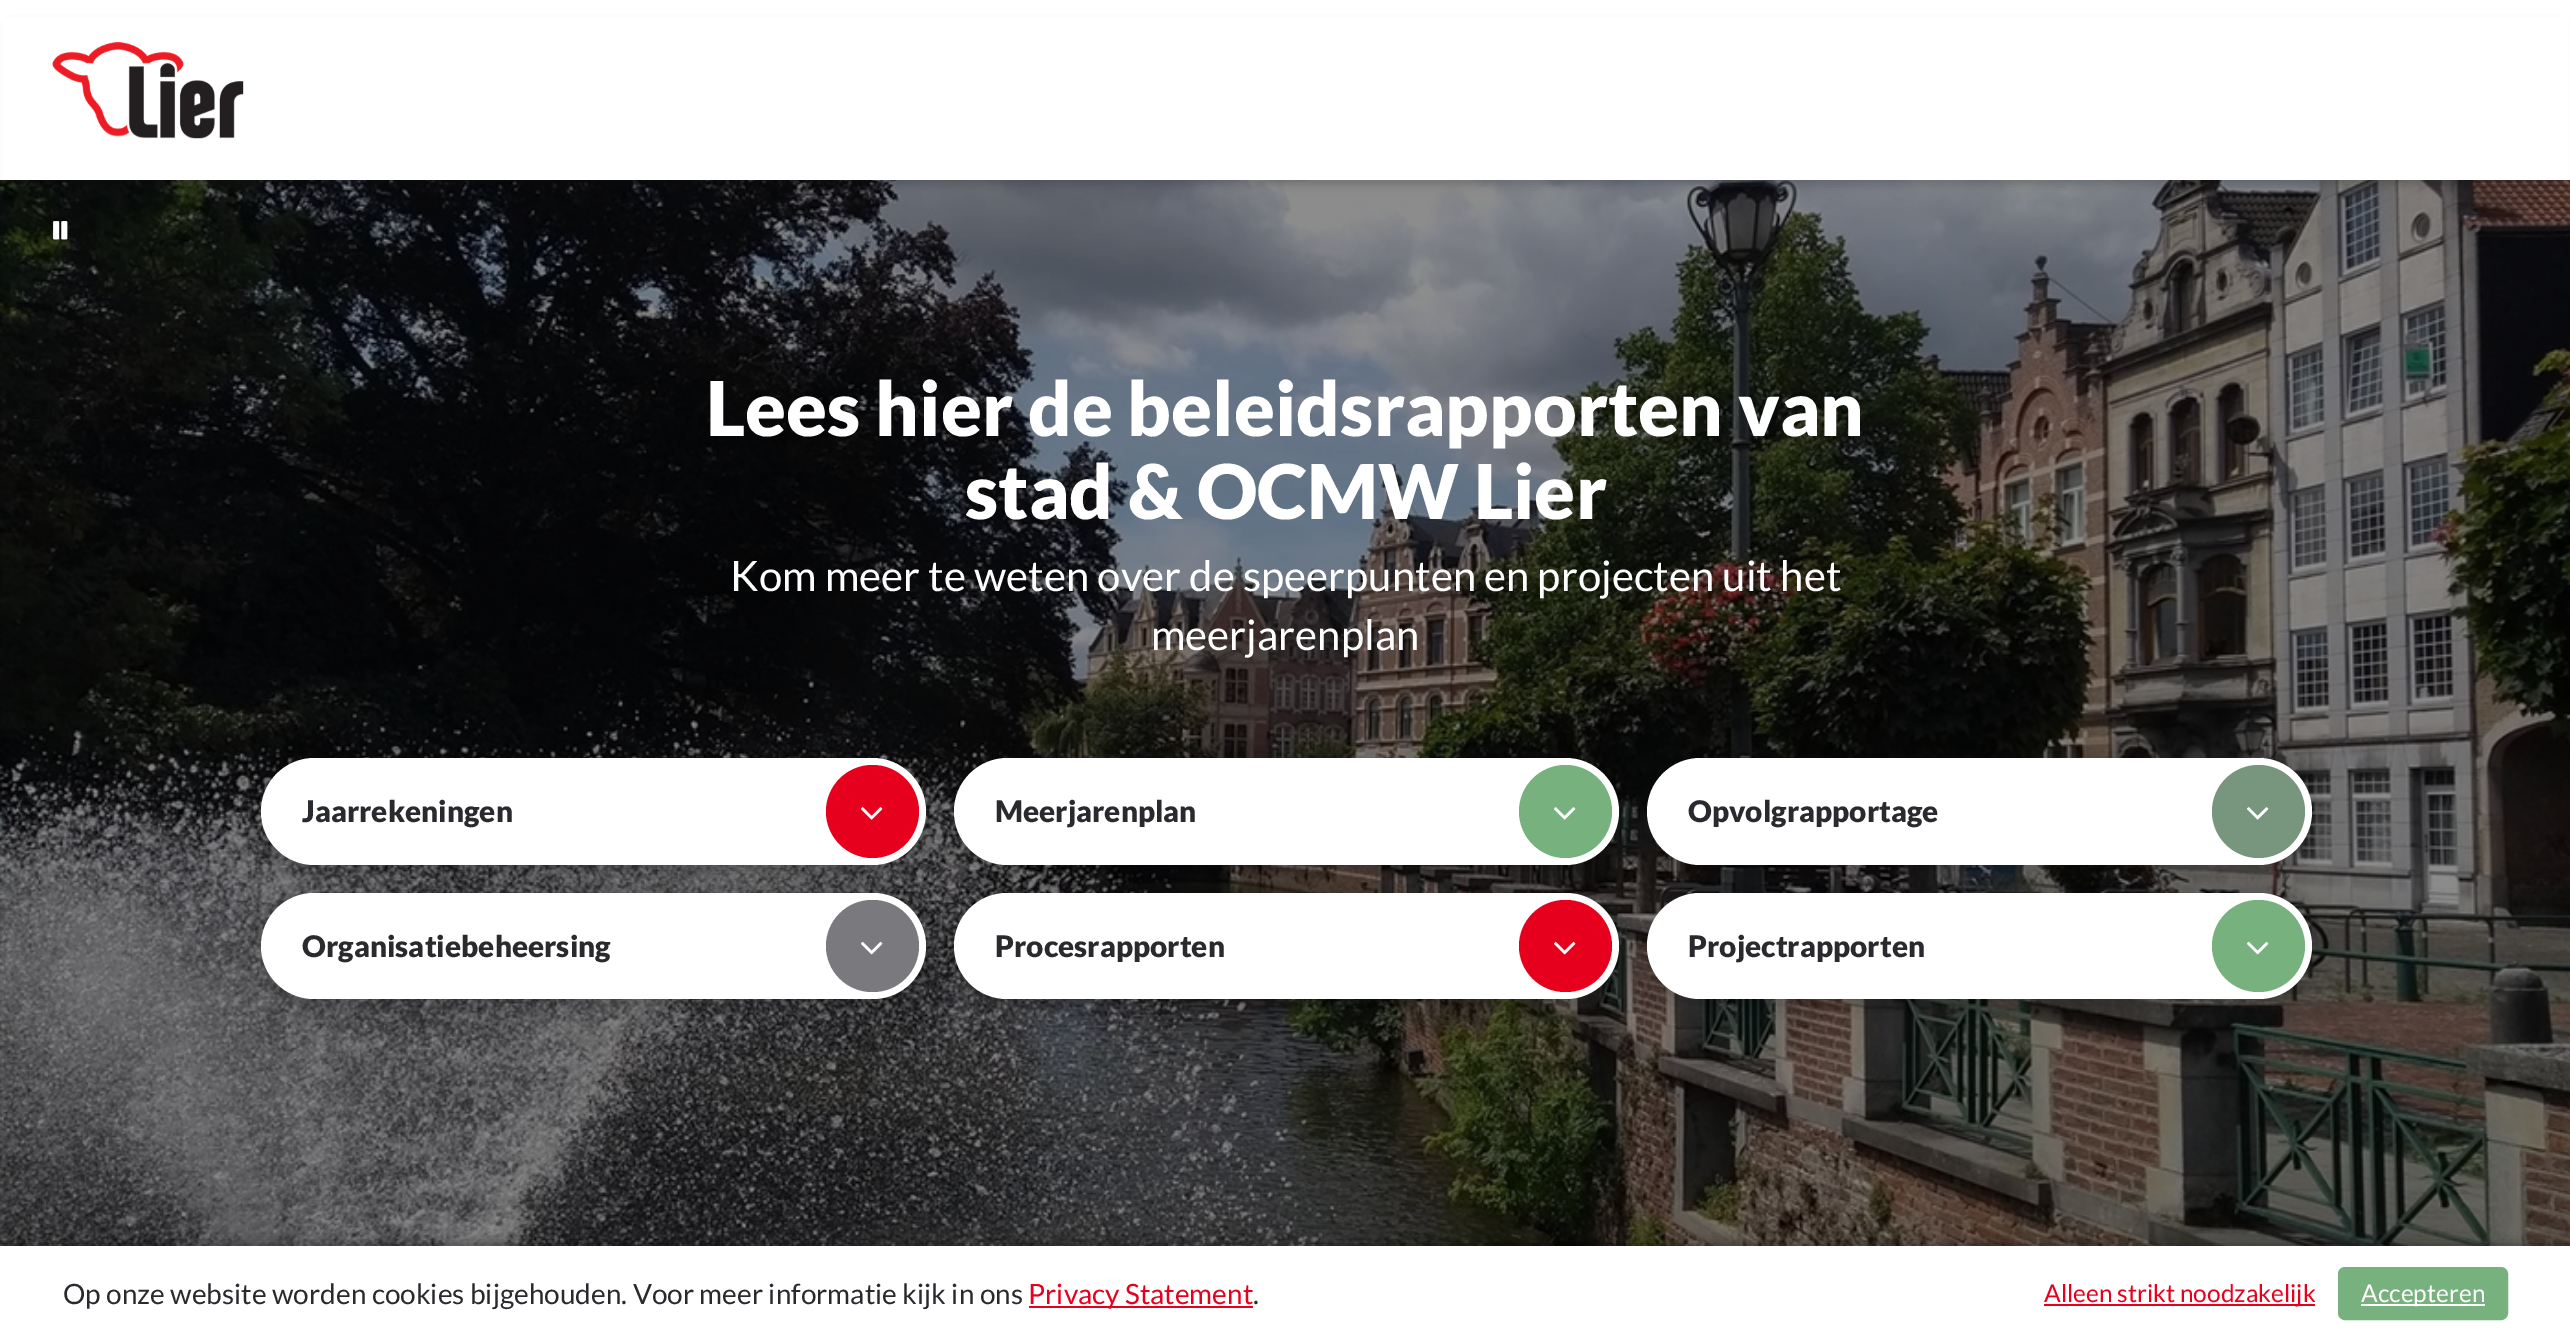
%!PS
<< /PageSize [2570 1344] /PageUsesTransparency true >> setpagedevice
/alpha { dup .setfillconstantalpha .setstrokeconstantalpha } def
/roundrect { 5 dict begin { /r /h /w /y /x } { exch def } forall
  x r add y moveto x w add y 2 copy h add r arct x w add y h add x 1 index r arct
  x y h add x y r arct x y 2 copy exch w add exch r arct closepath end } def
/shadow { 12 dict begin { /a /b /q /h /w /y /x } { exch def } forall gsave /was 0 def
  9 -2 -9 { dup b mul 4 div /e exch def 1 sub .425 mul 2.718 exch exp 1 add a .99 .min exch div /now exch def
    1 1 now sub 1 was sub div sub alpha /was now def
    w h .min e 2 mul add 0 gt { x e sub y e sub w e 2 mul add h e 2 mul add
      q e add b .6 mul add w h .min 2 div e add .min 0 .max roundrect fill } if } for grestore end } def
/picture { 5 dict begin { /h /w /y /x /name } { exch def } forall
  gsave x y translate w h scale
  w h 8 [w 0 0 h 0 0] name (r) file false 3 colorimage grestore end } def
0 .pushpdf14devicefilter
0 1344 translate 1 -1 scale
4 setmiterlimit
1 setgray
0 0 2570 1344 rectfill
(img2.rgb) 0 180 2570 1066 picture
0 setgray
11 25 2549 159 0 5 0.2 shadow
1 setgray
3 17 2565 163 rectfill
(img1.rgb) 52 42 192 97 picture
0.15 alpha
0 setgray
26 201 70 53 7 roundrect fill
1 alpha
(img3.rgb) 53 221 15 19 picture
/Lato-Black [75.6 0 0 -75.6 0 0] selectfont
1 setgray
706 436 moveto (Lees hier de beleidsrapporten van) show
965 519 moveto (stad & OCMW Lier) show
/Lato-Regular [42 0 0 -42 0 0] selectfont
730 591 moveto (Kom meer te weten over de speerpunten en projecten uit het) show
1151 650 moveto (meerjarenplan) show
0 setgray
264 761 665 107 53.5 14 0.3 shadow
1 setgray
261 758 665 107 53.5 roundrect fill
/Lato-Black [29.75 0 0 -29.75 0 0] selectfont
0.165 0.161 0.18 setrgbcolor
302 822 moveto (Jaarrekeningen) show
0.906 0 0.114 setrgbcolor
newpath 872.5 811.5 46.5 0 360 arc closepath fill
(img4.rgb) 861 807 22 13 picture
0 setgray
957 761 665 107 53.5 14 0.3 shadow
1 setgray
954 758 665 107 53.5 roundrect fill
0.165 0.161 0.18 setrgbcolor
995 822 moveto (Meerjarenplan) show
0.463 0.694 0.494 setrgbcolor
newpath 1565.5 811.5 46.5 0 360 arc closepath fill
(img5.rgb) 1554 807 22 13 picture
0 setgray
1650 761 665 107 53.5 14 0.3 shadow
1 setgray
1647 758 665 107 53.5 roundrect fill
0.165 0.161 0.18 setrgbcolor
1688 822 moveto (Opvolgrapportage) show
0.471 0.584 0.494 setrgbcolor
newpath 2258.5 811.5 46.5 0 360 arc closepath fill
(img6.rgb) 2247 807 22 13 picture
0 setgray
264 896 665 107 53.5 14 0.3 shadow
1 setgray
261 893 665 106 53 roundrect fill
0.165 0.161 0.18 setrgbcolor
302 957 moveto (Organisatiebeheersing) show
0.478 0.475 0.494 setrgbcolor
826 900 93 92 46 roundrect fill
(img7.rgb) 861 941 22 14 picture
0 setgray
957 896 665 107 53.5 14 0.3 shadow
1 setgray
954 893 665 106 53 roundrect fill
0.165 0.161 0.18 setrgbcolor
995 957 moveto (Procesrapporten) show
0.906 0 0.114 setrgbcolor
1519 900 93 92 46 roundrect fill
(img8.rgb) 1554 941 22 14 picture
0 setgray
1650 896 665 107 53.5 14 0.3 shadow
1 setgray
1647 893 665 106 53 roundrect fill
0.165 0.161 0.18 setrgbcolor
1688 957 moveto (Projectrapporten) show
0.463 0.694 0.494 setrgbcolor
2212 900 93 92 46 roundrect fill
(img9.rgb) 2247 941 22 14 picture
0 setgray
2 1248 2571 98 0 7 0.6 shadow
1 setgray
0 1246 2570 98 rectfill
/Lato-Regular [28 0 0 -28 0 0] selectfont
0.165 0.161 0.18 setrgbcolor
63 1304 moveto (Op onze website worden cookies bijgehouden. Voor meer informatie kijk in ons) show
0.906 0 0.114 setrgbcolor
1029 1306 224 2 rectfill
1028 1304 moveto (Privacy Statement) show
0.165 0.161 0.18 setrgbcolor
1253 1304 moveto (.) show
0.906 0 0.114 setrgbcolor
2044 1304 271 2 rectfill
/Lato-Regular [24.5 0 0 -24.5 0 0] selectfont
2044 1302 moveto (Alleen strikt noodzakelijk) show
0.463 0.694 0.494 setrgbcolor
2339 1268 168 51 6 roundrect gsave fill grestore
2 setlinewidth
stroke
1 setgray
2361 1304 124 2 rectfill
2361 1302 moveto (Accepteren) show
.poppdf14devicefilter showpage
